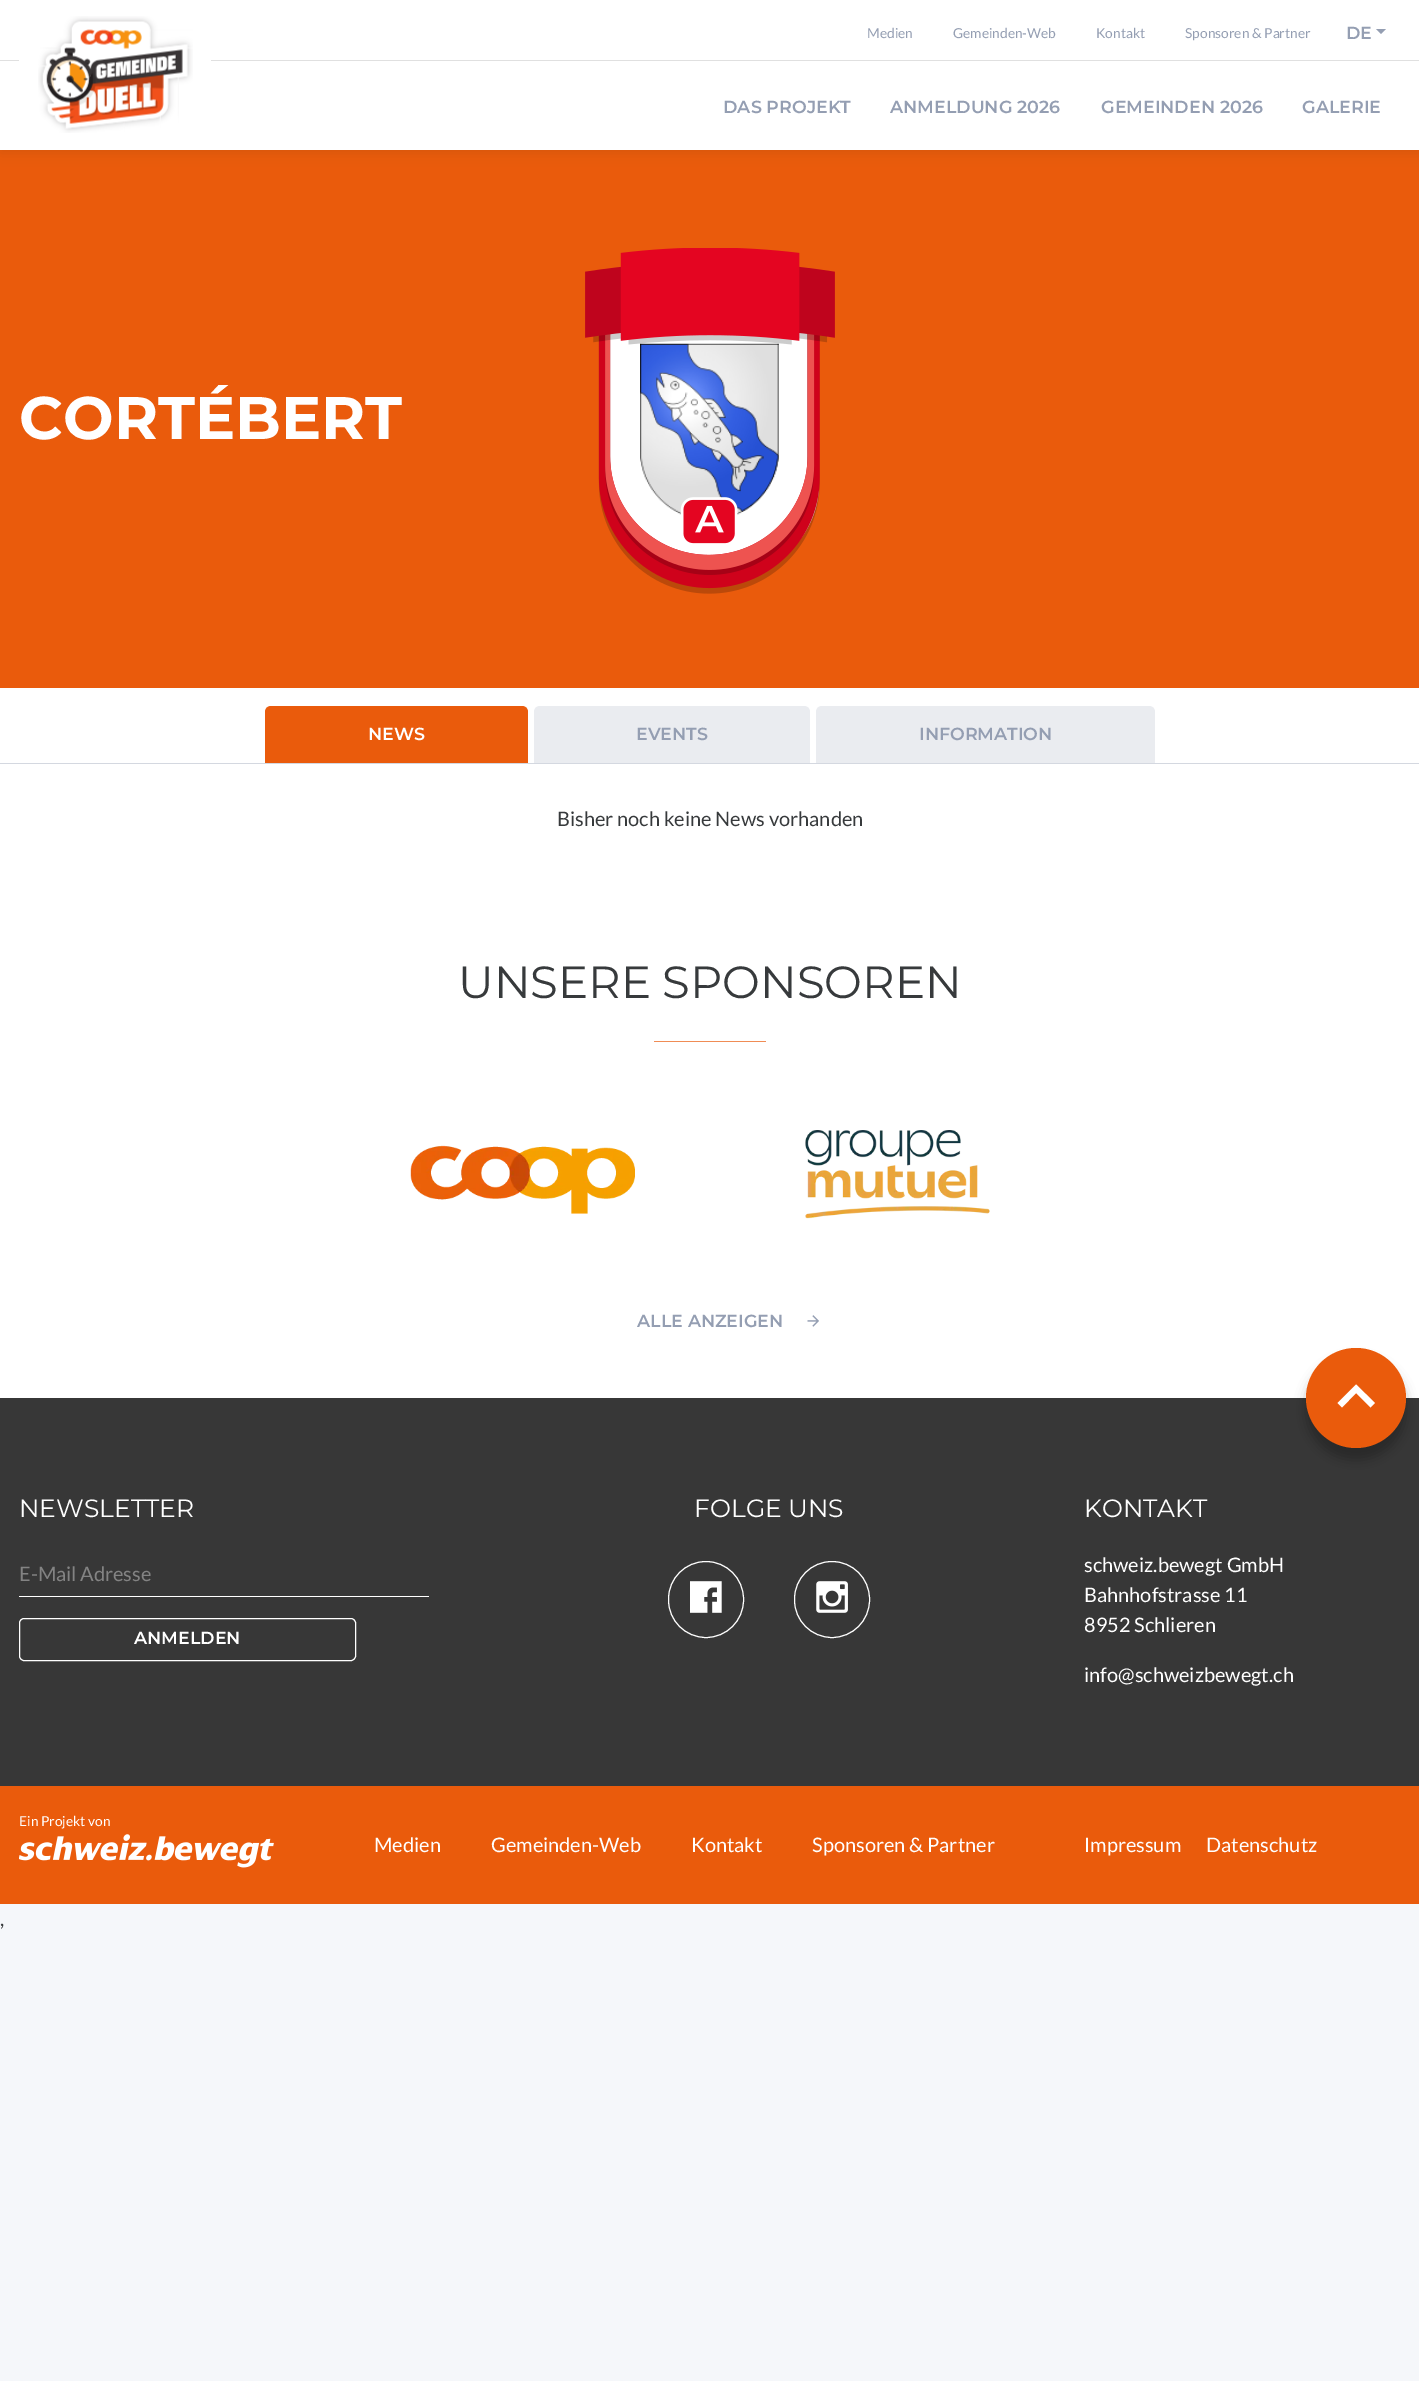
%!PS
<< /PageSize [1419 2381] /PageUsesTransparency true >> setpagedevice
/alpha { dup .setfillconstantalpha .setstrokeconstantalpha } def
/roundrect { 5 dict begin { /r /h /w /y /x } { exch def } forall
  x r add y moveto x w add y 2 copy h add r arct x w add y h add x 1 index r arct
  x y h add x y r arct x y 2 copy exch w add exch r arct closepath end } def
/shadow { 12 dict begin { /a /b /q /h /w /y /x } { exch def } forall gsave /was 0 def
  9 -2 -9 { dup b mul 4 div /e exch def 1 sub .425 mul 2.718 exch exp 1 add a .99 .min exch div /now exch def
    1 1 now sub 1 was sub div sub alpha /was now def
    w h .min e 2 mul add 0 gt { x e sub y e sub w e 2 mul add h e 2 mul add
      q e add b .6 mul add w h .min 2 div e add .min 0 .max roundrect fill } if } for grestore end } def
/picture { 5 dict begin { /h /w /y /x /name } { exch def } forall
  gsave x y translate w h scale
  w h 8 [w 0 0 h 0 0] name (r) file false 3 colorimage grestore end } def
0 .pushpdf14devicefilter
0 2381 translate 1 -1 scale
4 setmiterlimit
0.961 0.969 0.98 setrgbcolor
0 0 1419 2381 rectfill
0.918 0.357 0.047 setrgbcolor
0 150 1419 538 rectfill
0 setgray
0 3 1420 150 0 6 0.07 shadow
1 setgray
0 0 1419 150 rectfill
0.878 setgray
0 60 1419 1 rectfill
1 setgray
19 60 192 1 rectfill
(img1.rgb) 38 16 155 117 picture
/Lato-Regular [13.75 0 0 -13.75 0 0] selectfont
0.58 0.62 0.698 setrgbcolor
867 38 moveto (Medien) show
953 38 moveto (Gemeinden-Web) show
1096 38 moveto (Kontakt) show
1185 38 moveto (Sponsoren & Partner) show
/Montserrat-SemiBold [17.5 0 0 -17.5 0 0] selectfont
1346 39 moveto (DE) show
newpath 1376 29 moveto 1386 29 lineto 1381 34 lineto closepath fill
723 113 moveto (DAS PROJEKT) show
890 113 moveto (ANMELDUNG 2026) show
1101 113 moveto (GEMEINDEN 2026) show
1302 113 moveto (GALERIE) show
/Montserrat-Bold [60 0 0 -60 0 0] selectfont
1 setgray
19 439 moveto (CORTÉBERT) show
newpath 601 291 moveto 819 291 lineto 819 484 lineto 819 534.5 778.5 575 728 575 curveto 692 575 lineto 641.5 575 601 534.5 601 484 curveto closepath fill
(img3.rgb) 640 343 139 172 picture
(img2.rgb) 585 248 250 346 picture
0 688 1419 710 rectfill
0.831 0.847 0.878 setrgbcolor
0 763 1419 1 rectfill
0.918 0.357 0.047 setrgbcolor
newpath 271 706 moveto 522 706 lineto 525.5 706 528 708.5 528 712 curveto 528 763 lineto 265 763 lineto 265 712 lineto 265 708.5 267.5 706 271 706 curveto closepath fill
/Montserrat-SemiBold [17.5 0 0 -17.5 0 0] selectfont
1 setgray
368 740 moveto (NEWS) show
0.918 0.925 0.941 setrgbcolor
newpath 540 706 moveto 804 706 lineto 807.5 706 810 708.5 810 712 curveto 810 763 lineto 534 763 lineto 534 712 lineto 534 708.5 536.5 706 540 706 curveto closepath fill
0.58 0.62 0.698 setrgbcolor
636 740 moveto (EVENTS) show
0.918 0.925 0.941 setrgbcolor
newpath 822 706 moveto 1149 706 lineto 1152.5 706 1155 708.5 1155 712 curveto 1155 763 lineto 816 763 lineto 816 712 lineto 816 708.5 818.5 706 822 706 curveto closepath fill
0.58 0.62 0.698 setrgbcolor
919 740 moveto (INFORMATION) show
/Lato-Regular [20 0 0 -20 0 0] selectfont
0.216 0.227 0.235 setrgbcolor
557 826 moveto (Bisher noch keine News vorhanden) show
/Montserrat-Regular [45 0 0 -45 0 0] selectfont
458 998 moveto (UNSERE SPONSOREN) show
0.941 0.549 0.333 setrgbcolor
654 1041 112 1 rectfill
(img4.rgb) 410 1145 225 69 picture
(img5.rgb) 805 1130 185 89 picture
/Montserrat-SemiBold [17.5 0 0 -17.5 0 0] selectfont
0.58 0.62 0.698 setrgbcolor
637 1327 moveto (ALLE ANZEIGEN) show
(img6.rgb) 807 1315 12 12 picture
0.216 setgray
0 1398 1419 388 rectfill
0 setgray
1306 1360 100 100 50 6 0.3 shadow
0.918 0.357 0.047 setrgbcolor
newpath 1356 1398 50 0 360 arc closepath fill
1 setgray
newpath 1356 1384.5 moveto 1375 1403 lineto 1370.5 1407.5 lineto 1356 1393 lineto 1342 1407.5 lineto 1337.5 1403 lineto closepath fill
/Montserrat-Regular [25 0 0 -25 0 0] selectfont
19 1517 moveto (NEWSLETTER) show
19 1596 410 1 rectfill
/Lato-Regular [20 0 0 -20 0 0] selectfont
0.514 setgray
19 1581 moveto (E-Mail Adresse) show
1 setgray
19.5 1618.5 336 42 4.5 roundrect stroke
/Montserrat-SemiBold [17.5 0 0 -17.5 0 0] selectfont
134 1644 moveto (ANMELDEN) show
/Montserrat-Regular [25 0 0 -25 0 0] selectfont
694 1517 moveto (FOLGE UNS) show
668.5 1561.5 75 76 37.5 roundrect stroke
(img7.rgb) 690 1581 32 32 picture
794.5 1561.5 75 76 37.5 roundrect stroke
(img8.rgb) 816 1581 32 32 picture
1084 1517 moveto (KONTAKT) show
/Lato-Regular [20 0 0 -20 0 0] selectfont
1084 1572 moveto (schweiz.bewegt GmbH) show
1084 1602 moveto (Bahnhofstrasse 11) show
1084 1632 moveto (8952 Schlieren) show
1084 1682 moveto (info@schweizbewegt.ch) show
0.918 0.357 0.047 setrgbcolor
0 1786 1419 118 rectfill
/Lato-Regular [13.75 0 0 -13.75 0 0] selectfont
1 setgray
19 1826 moveto (Ein Projekt von) show
(img9.rgb) 19 1834 255 34 picture
/Lato-Regular [20 0 0 -20 0 0] selectfont
374 1852 moveto (Medien) show
491 1852 moveto (Gemeinden-Web) show
691 1852 moveto (Kontakt) show
812 1852 moveto (Sponsoren & Partner) show
1084 1852 moveto (Impressum) show
1206 1852 moveto (Datenschutz) show
0.216 0.227 0.235 setrgbcolor
0 1926 moveto (,) show
.poppdf14devicefilter showpage
